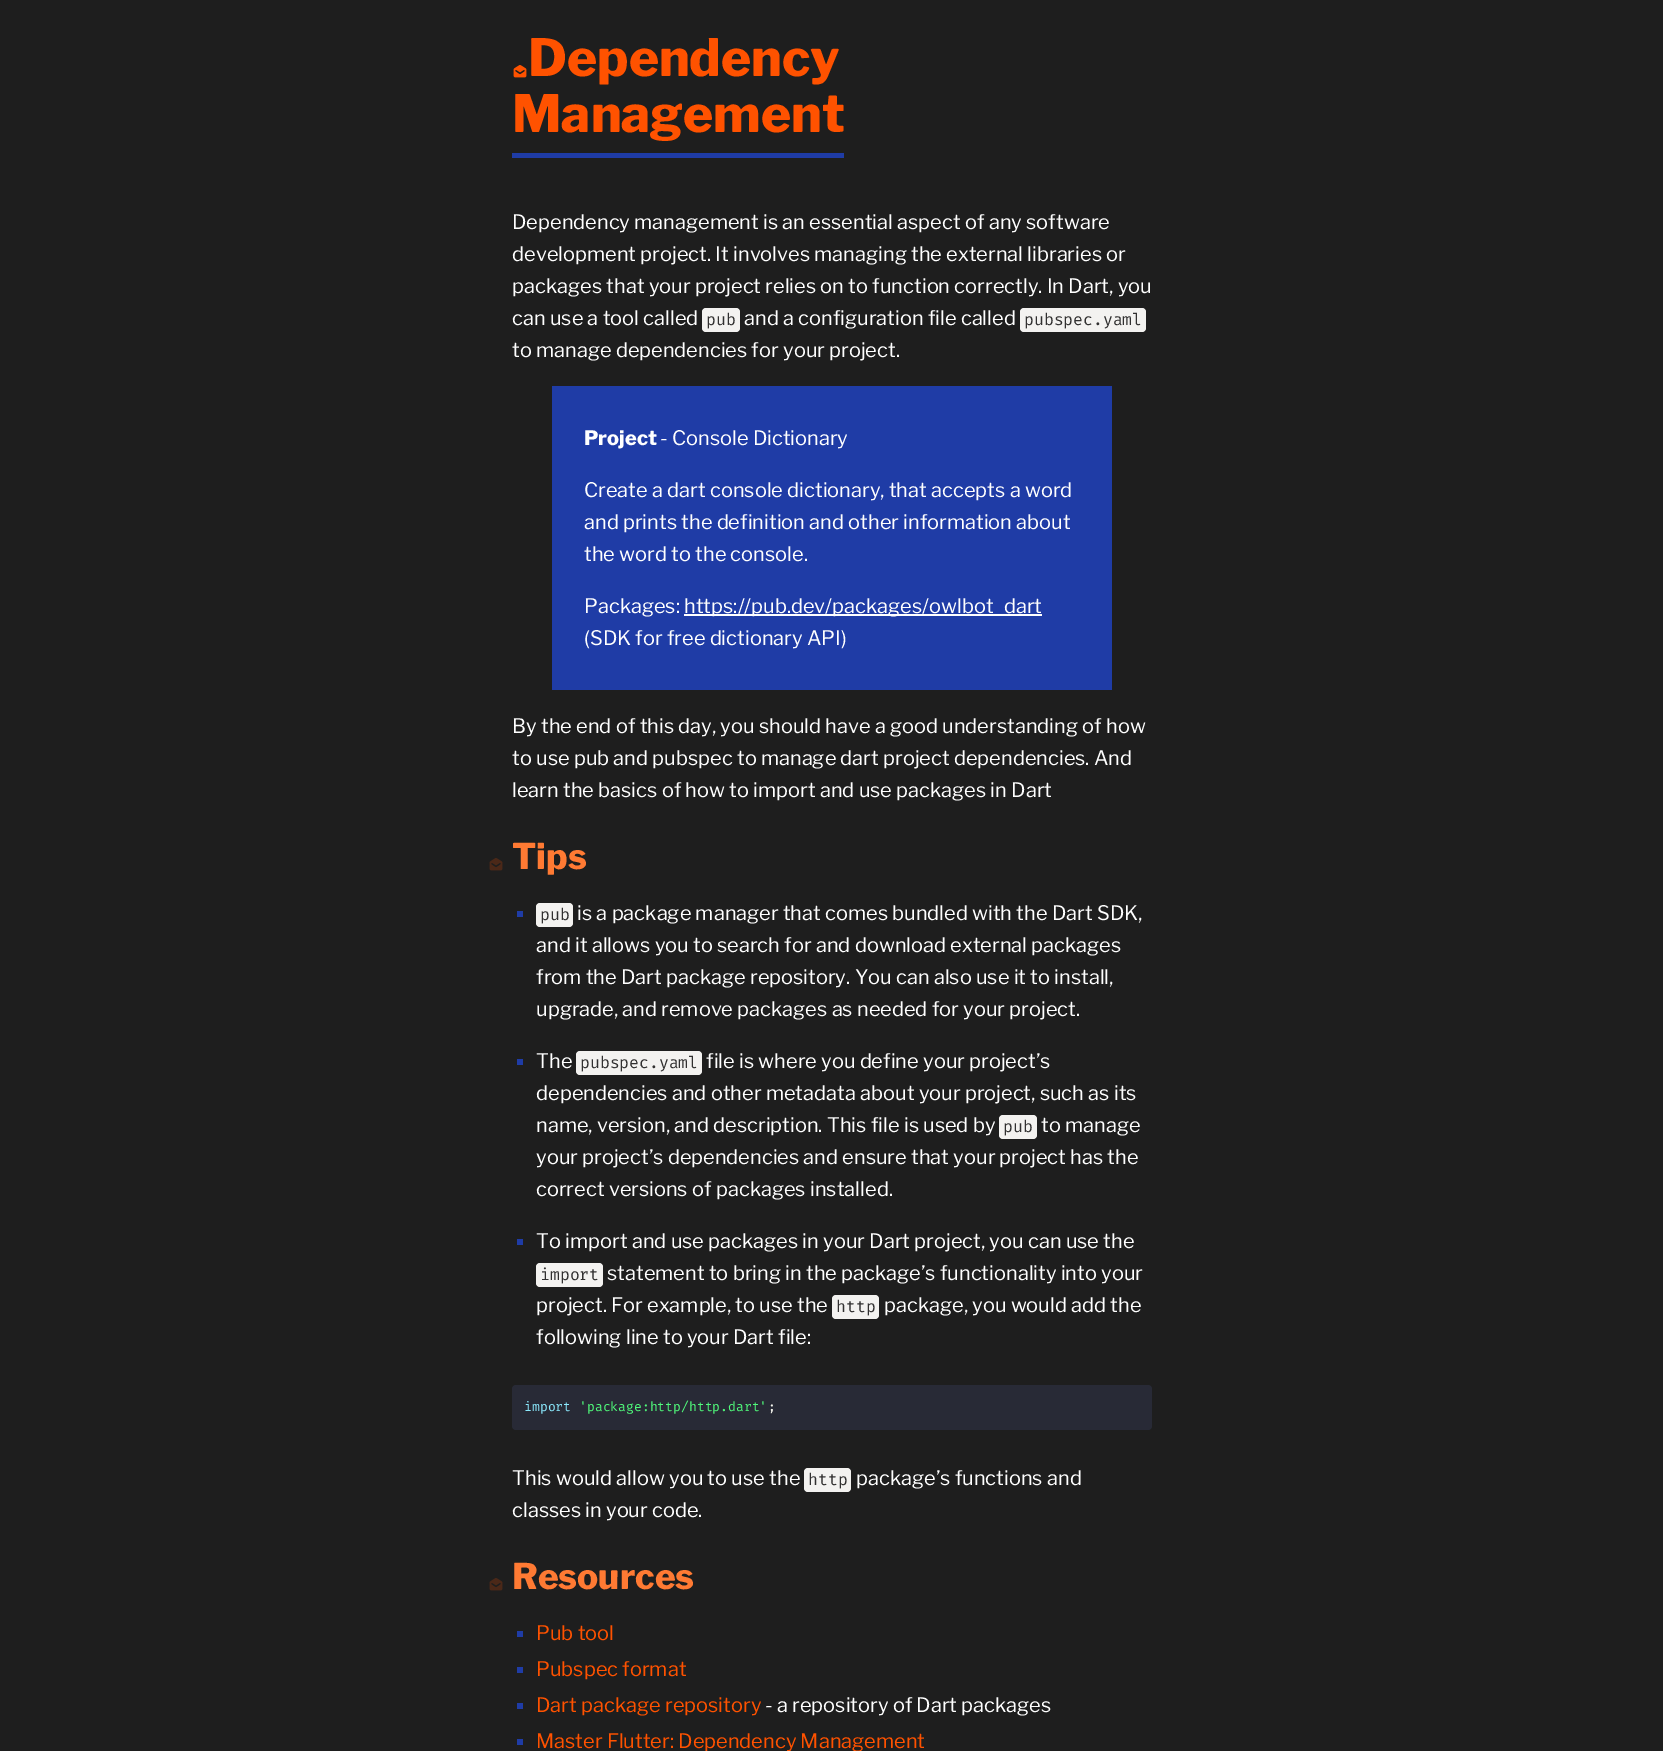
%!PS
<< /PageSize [1663 1751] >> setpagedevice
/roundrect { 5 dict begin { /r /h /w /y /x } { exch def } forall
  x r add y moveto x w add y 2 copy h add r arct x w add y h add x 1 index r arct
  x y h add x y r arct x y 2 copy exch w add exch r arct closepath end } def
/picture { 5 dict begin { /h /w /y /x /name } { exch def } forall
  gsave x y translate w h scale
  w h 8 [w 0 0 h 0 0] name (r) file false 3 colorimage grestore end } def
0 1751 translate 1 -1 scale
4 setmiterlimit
0.118 setgray
0 0 1663 1751 rectfill
(img1.rgb) 513 65 14 13 picture
/LibreFranklin-ExtraBold [51.25 0 0 -51.25 0 0] selectfont
1 0.322 0 setrgbcolor
528 76 moveto (Dependency) show
512 132 moveto (Management) show
0.122 0.235 0.651 setrgbcolor
512 153 332 5 rectfill
/LibreFranklin-Regular [20 0 0 -20 0 0] selectfont
1 setgray
512 229 moveto (Dependency management is an essential aspect of any software) show
512 261 moveto (development project. It involves managing the external libraries or) show
512 293 moveto (packages that your project relies on to function correctly. In Dart, you) show
512 325 moveto (can use a tool called) show
0.953 0.949 0.941 setrgbcolor
702 308 38 24 4 roundrect fill
/FiraCode-Regular [16 0 0 -16 0 0] selectfont
0.192 0.188 0.188 setrgbcolor
706 325 moveto (pub) show
/LibreFranklin-Regular [20 0 0 -20 0 0] selectfont
1 setgray
744 325 moveto (and a configuration file called) show
0.953 0.949 0.941 setrgbcolor
1020 308 126 24 4 roundrect fill
/FiraCode-Regular [16 0 0 -16 0 0] selectfont
0.192 0.188 0.188 setrgbcolor
1024 325 moveto (pubspec.yaml) show
/LibreFranklin-Regular [20 0 0 -20 0 0] selectfont
1 setgray
512 357 moveto (to manage dependencies for your project.) show
0.122 0.235 0.651 setrgbcolor
552 386 560 304 rectfill
/LibreFranklin-ExtraBold [20 0 0 -20 0 0] selectfont
1 setgray
584 445 moveto (Project) show
/LibreFranklin-Regular [20 0 0 -20 0 0] selectfont
660 445 moveto (- Console Dictionary) show
584 497 moveto (Create a dart console dictionary, that accepts a word) show
584 529 moveto (and prints the definition and other information about) show
584 561 moveto (the word to the console.) show
584 613 moveto (Packages:) show
684 614 358 2 rectfill
684 613 moveto (https://pub.dev/packages/owlbot_dart) show
584 645 moveto (\(SDK for free dictionary API\)) show
512 733 moveto (By the end of this day, you should have a good understanding of how) show
512 765 moveto (to use pub and pubspec to manage dart project dependencies. And) show
512 797 moveto (learn the basics of how to import and use packages in Dart) show
(img2.rgb) 489 858 14 13 picture
/LibreFranklin-ExtraBold [35.25 0 0 -35.25 0 0] selectfont
1 0.478 0.2 setrgbcolor
512 869 moveto (Tips) show
0.122 0.235 0.651 setrgbcolor
517 911 6 6 rectfill
0.953 0.949 0.941 setrgbcolor
536 903 37 24 4 roundrect fill
/FiraCode-Regular [16 0 0 -16 0 0] selectfont
0.192 0.188 0.188 setrgbcolor
540 920 moveto (pub) show
/LibreFranklin-Regular [20 0 0 -20 0 0] selectfont
1 setgray
577 920 moveto (is a package manager that comes bundled with the Dart SDK,) show
536 952 moveto (and it allows you to search for and download external packages) show
536 984 moveto (from the Dart package repository. You can also use it to install,) show
536 1016 moveto (upgrade, and remove packages as needed for your project.) show
0.122 0.235 0.651 setrgbcolor
517 1059 6 6 rectfill
1 setgray
536 1068 moveto (The) show
0.953 0.949 0.941 setrgbcolor
576 1051 126 24 4 roundrect fill
/FiraCode-Regular [16 0 0 -16 0 0] selectfont
0.192 0.188 0.188 setrgbcolor
580 1068 moveto (pubspec.yaml) show
/LibreFranklin-Regular [20 0 0 -20 0 0] selectfont
1 setgray
706 1068 moveto (file is where you define your project’s) show
536 1100 moveto (dependencies and other metadata about your project, such as its) show
536 1132 moveto (name, version, and description. This file is used by) show
0.953 0.949 0.941 setrgbcolor
999 1115 38 24 4 roundrect fill
/FiraCode-Regular [16 0 0 -16 0 0] selectfont
0.192 0.188 0.188 setrgbcolor
1003 1132 moveto (pub) show
/LibreFranklin-Regular [20 0 0 -20 0 0] selectfont
1 setgray
1041 1132 moveto (to manage) show
536 1164 moveto (your project’s dependencies and ensure that your project has the) show
536 1196 moveto (correct versions of packages installed.) show
0.122 0.235 0.651 setrgbcolor
517 1239 6 6 rectfill
1 setgray
536 1248 moveto (To import and use packages in your Dart project, you can use the) show
0.953 0.949 0.941 setrgbcolor
536 1263 67 24 4 roundrect fill
/FiraCode-Regular [16 0 0 -16 0 0] selectfont
0.192 0.188 0.188 setrgbcolor
540 1280 moveto (import) show
/LibreFranklin-Regular [20 0 0 -20 0 0] selectfont
1 setgray
607 1280 moveto (statement to bring in the package’s functionality into your) show
536 1312 moveto (project. For example, to use the) show
0.953 0.949 0.941 setrgbcolor
832 1295 47 24 4 roundrect fill
/FiraCode-Regular [16 0 0 -16 0 0] selectfont
0.192 0.188 0.188 setrgbcolor
836 1312 moveto (http) show
/LibreFranklin-Regular [20 0 0 -20 0 0] selectfont
1 setgray
884 1312 moveto (package, you would add the) show
536 1344 moveto (following line to your Dart file:) show
0.157 0.165 0.212 setrgbcolor
512 1385 640 45 4 roundrect fill
/FiraCode-Regular [12.75 0 0 -12.75 0 0] selectfont
0.545 0.914 0.992 setrgbcolor
524 1411 moveto (import) show
0.314 0.98 0.482 setrgbcolor
579 1411 moveto ('package:http/http.dart') show
0.973 0.973 0.949 setrgbcolor
768 1411 moveto (;) show
/LibreFranklin-Regular [20 0 0 -20 0 0] selectfont
1 setgray
512 1485 moveto (This would allow you to use the) show
0.953 0.949 0.941 setrgbcolor
804 1468 47 24 4 roundrect fill
/FiraCode-Regular [16 0 0 -16 0 0] selectfont
0.192 0.188 0.188 setrgbcolor
808 1485 moveto (http) show
/LibreFranklin-Regular [20 0 0 -20 0 0] selectfont
1 setgray
856 1485 moveto (package’s functions and) show
512 1517 moveto (classes in your code.) show
(img2.rgb) 489 1578 14 13 picture
/LibreFranklin-ExtraBold [35.25 0 0 -35.25 0 0] selectfont
1 0.478 0.2 setrgbcolor
512 1589 moveto (Resources) show
0.122 0.235 0.651 setrgbcolor
517 1631 6 6 rectfill
/LibreFranklin-Regular [20 0 0 -20 0 0] selectfont
1 0.322 0 setrgbcolor
536 1640 moveto (Pub tool) show
0.122 0.235 0.651 setrgbcolor
517 1667 6 6 rectfill
1 0.322 0 setrgbcolor
536 1676 moveto (Pubspec format) show
0.122 0.235 0.651 setrgbcolor
517 1703 6 6 rectfill
1 0.322 0 setrgbcolor
536 1712 moveto (Dart package repository) show
1 setgray
765 1712 moveto (- a repository of Dart packages) show
0.122 0.235 0.651 setrgbcolor
517 1739 6 6 rectfill
1 0.322 0 setrgbcolor
536 1748 moveto (Master Flutter: Dependency Management) show
showpage
